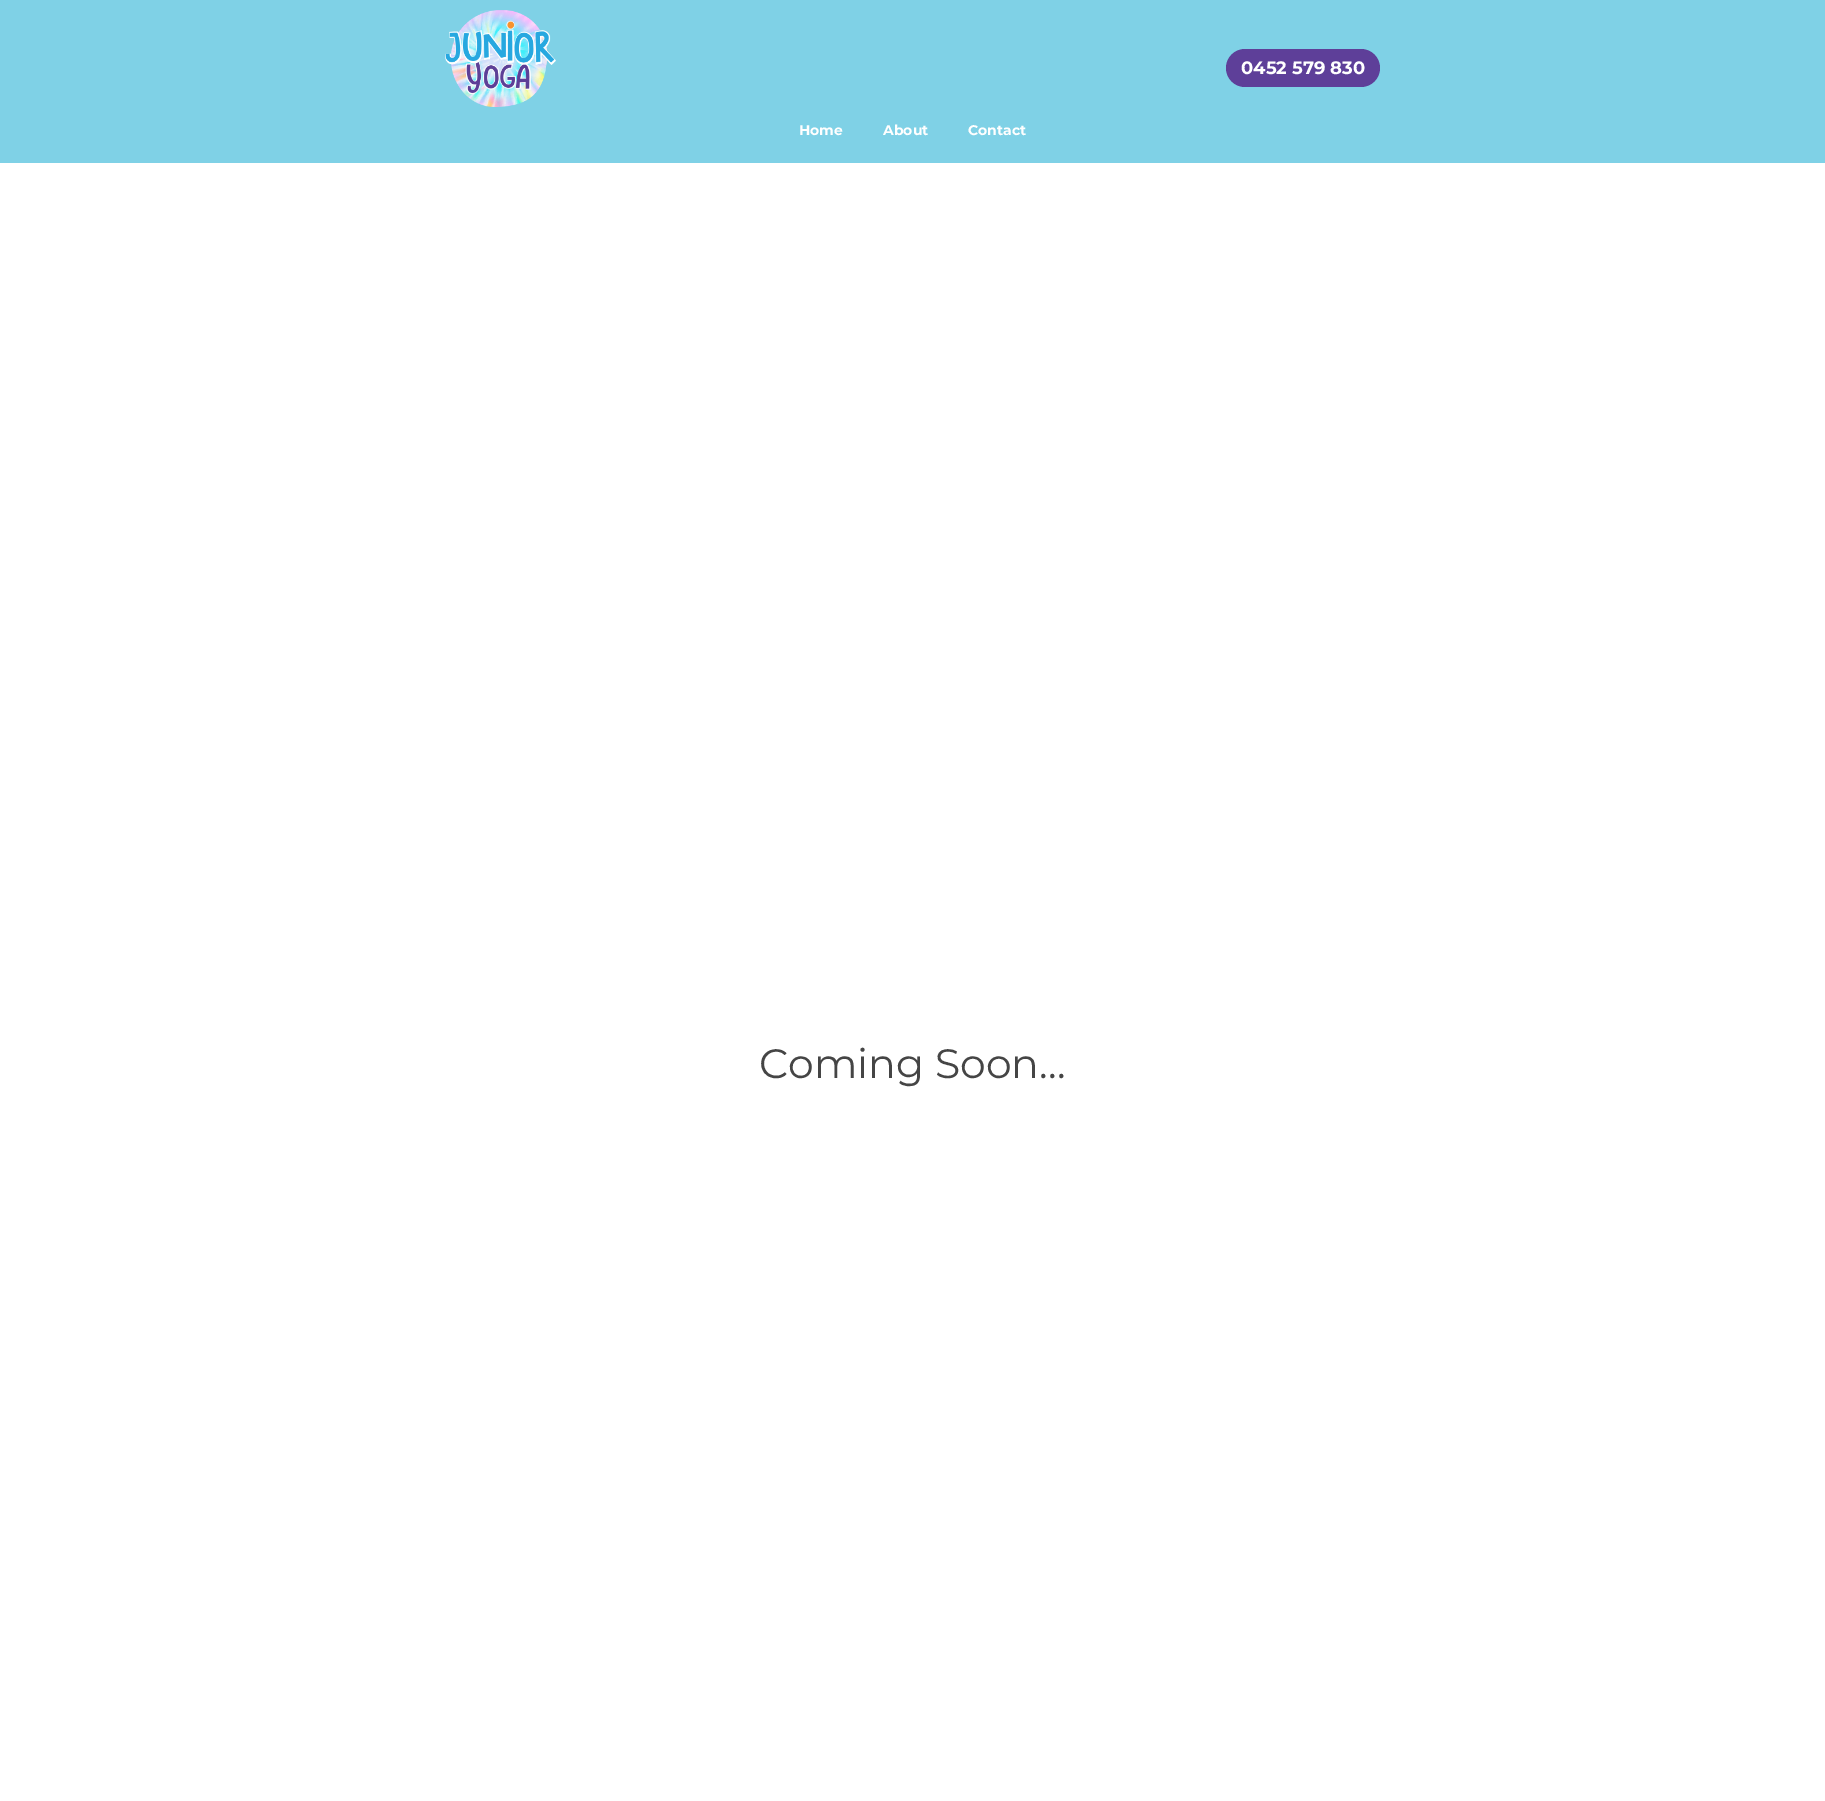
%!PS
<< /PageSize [1825 1801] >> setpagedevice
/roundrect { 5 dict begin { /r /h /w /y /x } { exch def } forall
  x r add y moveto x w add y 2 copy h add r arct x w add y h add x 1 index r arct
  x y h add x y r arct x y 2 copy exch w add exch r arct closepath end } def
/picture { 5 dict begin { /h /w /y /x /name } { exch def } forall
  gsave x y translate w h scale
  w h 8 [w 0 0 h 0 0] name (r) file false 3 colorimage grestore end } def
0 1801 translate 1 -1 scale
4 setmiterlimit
0.498 0.82 0.902 setrgbcolor
0 0 1825 1801 rectfill
(img1.rgb) 445 10 111 97 picture
0.369 0.247 0.6 setrgbcolor
1226 49 154 38 19 roundrect fill
/Montserrat-Bold [18 0 0 -18 0 0] selectfont
1 setgray
1241 74 moveto (0452 579 830) show
/Montserrat-Bold [14 0 0 -14 0 0] selectfont
799 135 moveto (Home) show
883 135 moveto (About) show
968 135 moveto (Contact) show
0 163 1825 1638 rectfill
/Montserrat-Regular [41 0 0 -41 0 0] selectfont
0.271 setgray
759 1078 moveto (Coming Soon...) show
showpage
